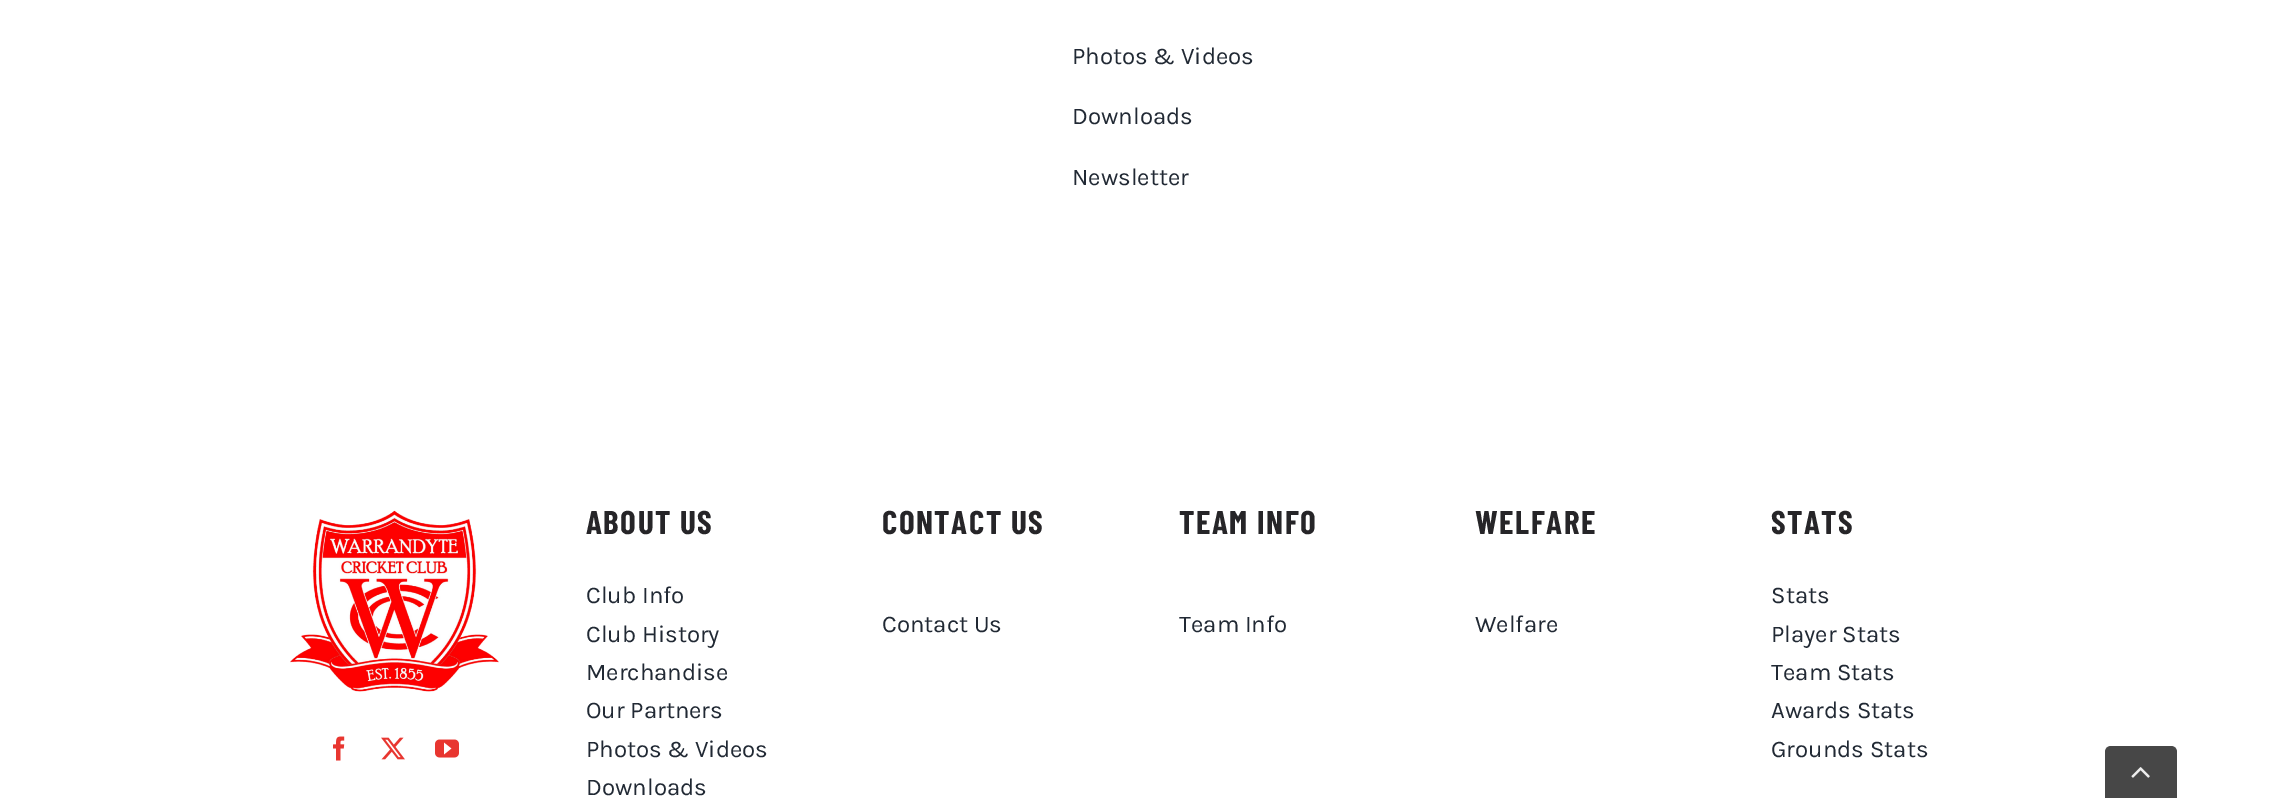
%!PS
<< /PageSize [2289 798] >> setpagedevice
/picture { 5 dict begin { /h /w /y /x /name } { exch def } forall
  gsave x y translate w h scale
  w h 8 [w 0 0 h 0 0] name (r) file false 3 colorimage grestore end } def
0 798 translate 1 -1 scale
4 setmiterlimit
1 setgray
0 0 2289 798 rectfill
/Karla-Regular [24 0 0 -24 0 0] selectfont
0.129 0.161 0.204 setrgbcolor
1072 64 moveto (Photos & Videos) show
1072 124 moveto (Downloads) show
1072 185 moveto (Newsletter) show
(img1.rgb) 290 510 209 182 picture
(img2.rgb) 333 736 12 25 picture
(img3.rgb) 381 737 24 23 picture
(img4.rgb) 435 739 24 19 picture
/BarlowCondensed-Bold [33 0 0 -33 0 0] selectfont
0.149 0.145 0.157 setrgbcolor
586 534 moveto 1.5 0 (ABOUT US) ashow
/Karla-Regular [24 0 0 -24 0 0] selectfont
0.129 0.161 0.204 setrgbcolor
586 603 moveto (Club Info) show
586 642 moveto (Club History) show
586 680 moveto (Merchandise) show
586 718 moveto (Our Partners) show
586 757 moveto (Photos & Videos) show
586 795 moveto (Downloads) show
/BarlowCondensed-Bold [33 0 0 -33 0 0] selectfont
0.149 0.145 0.157 setrgbcolor
882 534 moveto 1.5 0 (CONTACT US) ashow
/Karla-Regular [24 0 0 -24 0 0] selectfont
0.129 0.161 0.204 setrgbcolor
882 632 moveto (Contact Us) show
/BarlowCondensed-Bold [33 0 0 -33 0 0] selectfont
0.149 0.145 0.157 setrgbcolor
1179 534 moveto 1.5 0 (TEAM INFO) ashow
/Karla-Regular [24 0 0 -24 0 0] selectfont
0.129 0.161 0.204 setrgbcolor
1179 632 moveto (Team Info) show
/BarlowCondensed-Bold [33 0 0 -33 0 0] selectfont
0.149 0.145 0.157 setrgbcolor
1475 534 moveto 1.5 0 (WELFARE) ashow
/Karla-Regular [24 0 0 -24 0 0] selectfont
0.129 0.161 0.204 setrgbcolor
1475 632 moveto (Welfare) show
/BarlowCondensed-Bold [33 0 0 -33 0 0] selectfont
0.149 0.145 0.157 setrgbcolor
1771 534 moveto 1.5 0 (STATS) ashow
/Karla-Regular [24 0 0 -24 0 0] selectfont
0.129 0.161 0.204 setrgbcolor
1771 603 moveto (Stats) show
1771 642 moveto (Player Stats) show
1771 680 moveto (Team Stats) show
1771 718 moveto (Awards Stats) show
1771 757 moveto (Grounds Stats) show
0.278 setgray
newpath 2111 746 moveto 2171 746 lineto 2174.5 746 2177 748.5 2177 752 curveto 2177 798 lineto 2105 798 lineto 2105 752 lineto 2105 748.5 2107.5 746 2111 746 curveto closepath fill
(img5.rgb) 2131 767 19 11 picture
showpage
